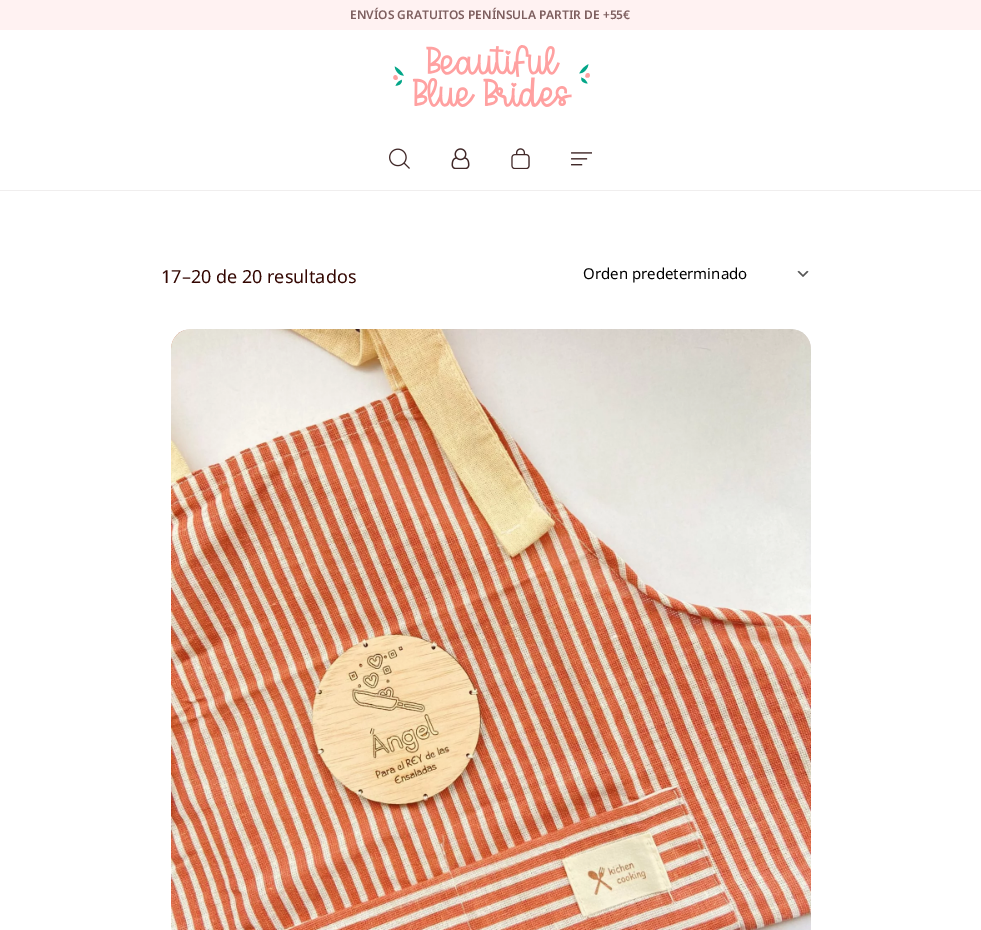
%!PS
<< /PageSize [981 930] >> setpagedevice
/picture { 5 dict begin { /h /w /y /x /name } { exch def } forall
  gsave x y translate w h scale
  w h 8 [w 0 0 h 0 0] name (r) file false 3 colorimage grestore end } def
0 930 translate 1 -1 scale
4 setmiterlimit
1 setgray
0 0 981 930 rectfill
0.941 0.933 0.933 setrgbcolor
0 190 981 1 rectfill
1 0.949 0.949 setrgbcolor
0 0 981 30 rectfill
/NotoSans-SemiBold [12 0 0 -12 0 0] selectfont
0.494 0.373 0.373 setrgbcolor
350 19 moveto (ENVÍOS GRATUITOS PENÍNSULA PARTIR DE +55€) show
(img1.rgb) 393 45 197 62 picture
(img2.rgb) 389 148 21 21 picture
(img3.rgb) 451 148 19 21 picture
(img4.rgb) 511 148 19 21 picture
(img5.rgb) 571 152 21 14 picture
/NotoSans-Regular [18 0 0 -18 0 0] selectfont
0.2 0.024 0.004 setrgbcolor
161 283 moveto (17–20 de 20 resultados) show
(img6.rgb) 797 270 12 7 picture
/NotoSans-Regular [15 0 0 -15 0 0] selectfont
0 setgray
583 279 moveto (Orden predeterminado) show
(img7.rgb) 171 329 640 20 picture
(img8.rgb) 171 329 640 601 picture
showpage
